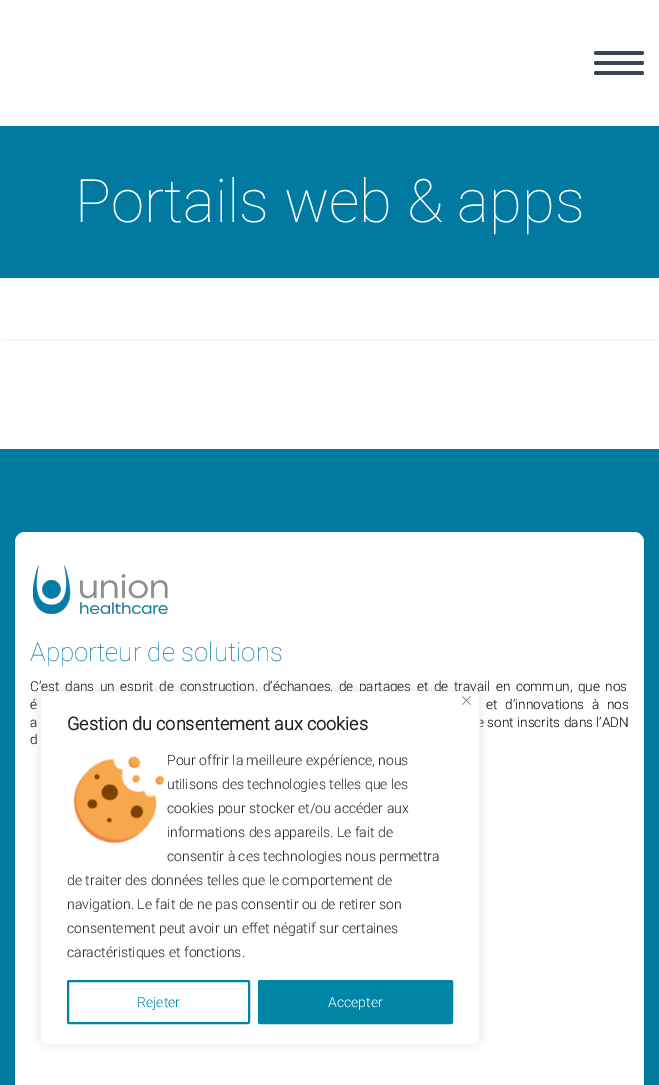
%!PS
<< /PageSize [659 1085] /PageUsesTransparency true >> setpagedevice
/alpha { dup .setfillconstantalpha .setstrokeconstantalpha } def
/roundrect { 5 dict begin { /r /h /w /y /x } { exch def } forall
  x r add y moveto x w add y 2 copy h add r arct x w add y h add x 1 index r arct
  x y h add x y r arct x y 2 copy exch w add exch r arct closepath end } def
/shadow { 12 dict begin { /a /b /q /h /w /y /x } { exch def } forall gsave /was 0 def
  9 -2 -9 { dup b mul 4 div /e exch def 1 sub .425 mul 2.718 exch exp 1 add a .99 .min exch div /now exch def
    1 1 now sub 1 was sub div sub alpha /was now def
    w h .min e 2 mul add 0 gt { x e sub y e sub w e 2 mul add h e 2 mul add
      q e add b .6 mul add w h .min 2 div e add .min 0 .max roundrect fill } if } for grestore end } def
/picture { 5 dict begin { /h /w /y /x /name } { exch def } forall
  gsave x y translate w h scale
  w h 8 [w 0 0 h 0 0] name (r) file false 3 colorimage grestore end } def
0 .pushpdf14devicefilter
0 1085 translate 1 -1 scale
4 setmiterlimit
0 0.478 0.631 setrgbcolor
0 0 659 1085 rectfill
1 setgray
0 0 659 126 rectfill
0.22 0.271 0.329 setrgbcolor
594 71 50 4 2 roundrect fill
594 61 50 4 2 roundrect fill
594 51 50 4 2 roundrect fill
/Roboto-Thin [60 0 0 -60 0 0] selectfont
1 setgray
75 222 moveto (Portails web & apps) show
0 278 659 171 rectfill
0 setgray
0 312 659 28 4 0.5 0.05 shadow
1 setgray
0 311 659 28 4 roundrect fill
15 532 629 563 10 roundrect fill
(img1.rgb) 32 564 136 50 picture
/Roboto-Thin [26 0 0 -26 0 0] selectfont
0 0.478 0.631 setrgbcolor
30 661 moveto (Apporteur de solutions) show
/Roboto-Light [13.6 0 0 -13.6 0 0] selectfont
0 setgray
30 691 moveto 2.25 0 32 (C’est dans un esprit de construction, d’échanges, de partages et de travail en commun, que nos) widthshow
30 709 moveto 4.5 0 32 (é) widthshow
486 709 moveto 4.5 0 32 (et d’innovations à nos) widthshow
30 727 moveto (a) show
477 727 moveto (e sont inscrits dans l’ADN) show
30 744 moveto (d) show
0.675 0.671 0.671 setrgbcolor
40 690 440 354 6 5 0.3 shadow
1 setgray
40.5 691.5 439 353 5.5 roundrect gsave fill grestore
0.957 setgray
stroke
(img2.rgb) 462 696 9 9 picture
/Roboto-Bold [18 0 0 -18 0 0] selectfont
0.129 setgray
67 730 moveto (Gestion du consentement aux cookies) show
/Roboto-Light [14 0 0 -14 0 0] selectfont
167 765 moveto (Pour offrir la meilleure expérience, nous) show
167 789 moveto (utilisons des technologies telles que les) show
167 813 moveto (cookies pour stocker et/ou accéder aux) show
167 837 moveto (informations des appareils. Le fait de) show
167 861 moveto (consentir à ces technologies nous permettra) show
67 885 moveto (de traiter des données telles que le comportement de) show
67 909 moveto (navigation. Le fait de ne pas consentir ou de retirer son) show
67 933 moveto (consentement peut avoir un effet négatif sur certaines) show
67 957 moveto (caractéristiques et fonctions.) show
(img3.rgb) 73 756 92 88 picture
0 0.522 0.647 setrgbcolor
2 setlinewidth
68 981 181 42 1 roundrect stroke
137 1007 moveto (Rejeter) show
259 981 193 42 1 roundrect gsave fill grestore
stroke
1 setgray
328 1007 moveto (Accepter) show
.poppdf14devicefilter showpage
